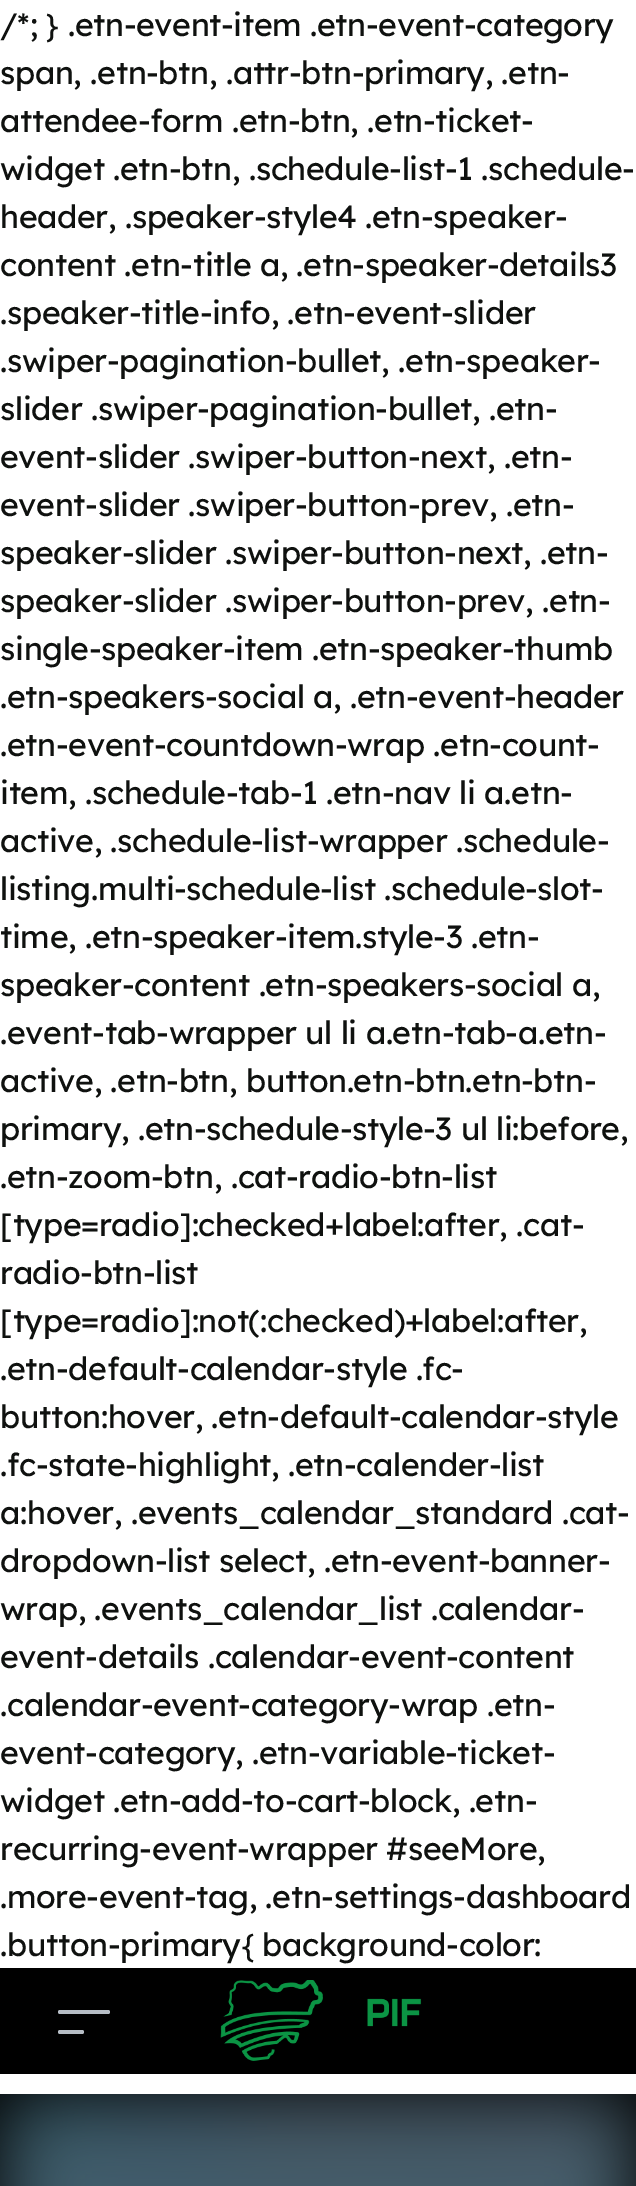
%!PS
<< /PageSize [636 2186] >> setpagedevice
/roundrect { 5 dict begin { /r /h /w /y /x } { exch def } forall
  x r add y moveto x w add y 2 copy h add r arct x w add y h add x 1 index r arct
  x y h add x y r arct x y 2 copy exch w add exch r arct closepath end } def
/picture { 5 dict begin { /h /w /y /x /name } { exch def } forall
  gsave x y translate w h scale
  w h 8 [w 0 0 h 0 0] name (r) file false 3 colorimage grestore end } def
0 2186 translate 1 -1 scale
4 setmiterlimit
1 setgray
0 0 636 2186 rectfill
/LexendDeca-Regular [32 0 0 -32 0 0] selectfont
0.059 0.067 0.059 setrgbcolor
0 36 moveto -0.35 0 (/*; } .etn-event-item .etn-event-category) ashow
0 84 moveto -0.35 0 (span, .etn-btn, .attr-btn-primary, .etn-) ashow
0 132 moveto -0.35 0 (attendee-form .etn-btn, .etn-ticket-) ashow
0 180 moveto -0.35 0 (widget .etn-btn, .schedule-list-1 .schedule-) ashow
0 228 moveto -0.35 0 (header, .speaker-style4 .etn-speaker-) ashow
0 276 moveto -0.35 0 (content .etn-title a, .etn-speaker-details3) ashow
0 324 moveto -0.35 0 (.speaker-title-info, .etn-event-slider) ashow
0 372 moveto -0.35 0 (.swiper-pagination-bullet, .etn-speaker-) ashow
0 420 moveto -0.35 0 (slider .swiper-pagination-bullet, .etn-) ashow
0 468 moveto -0.35 0 (event-slider .swiper-button-next, .etn-) ashow
0 516 moveto -0.35 0 (event-slider .swiper-button-prev, .etn-) ashow
0 564 moveto -0.35 0 (speaker-slider .swiper-button-next, .etn-) ashow
0 612 moveto -0.35 0 (speaker-slider .swiper-button-prev, .etn-) ashow
0 660 moveto -0.35 0 (single-speaker-item .etn-speaker-thumb) ashow
0 708 moveto -0.35 0 (.etn-speakers-social a, .etn-event-header) ashow
0 756 moveto -0.35 0 (.etn-event-countdown-wrap .etn-count-) ashow
0 804 moveto -0.35 0 (item, .schedule-tab-1 .etn-nav li a.etn-) ashow
0 852 moveto -0.35 0 (active, .schedule-list-wrapper .schedule-) ashow
0 900 moveto -0.35 0 (listing.multi-schedule-list .schedule-slot-) ashow
0 948 moveto -0.35 0 (time, .etn-speaker-item.style-3 .etn-) ashow
0 996 moveto -0.35 0 (speaker-content .etn-speakers-social a,) ashow
0 1044 moveto -0.35 0 (.event-tab-wrapper ul li a.etn-tab-a.etn-) ashow
0 1092 moveto -0.35 0 (active, .etn-btn, button.etn-btn.etn-btn-) ashow
0 1140 moveto -0.35 0 (primary, .etn-schedule-style-3 ul li:before,) ashow
0 1188 moveto -0.35 0 (.etn-zoom-btn, .cat-radio-btn-list) ashow
0 1236 moveto -0.35 0 ([type=radio]:checked+label:after, .cat-) ashow
0 1284 moveto -0.35 0 (radio-btn-list) ashow
0 1332 moveto -0.35 0 ([type=radio]:not\(:checked\)+label:after,) ashow
0 1380 moveto -0.35 0 (.etn-default-calendar-style .fc-) ashow
0 1428 moveto -0.35 0 (button:hover, .etn-default-calendar-style) ashow
0 1476 moveto -0.35 0 (.fc-state-highlight, .etn-calender-list) ashow
0 1524 moveto -0.35 0 (a:hover, .events_calendar_standard .cat-) ashow
0 1572 moveto -0.35 0 (dropdown-list select, .etn-event-banner-) ashow
0 1620 moveto -0.35 0 (wrap, .events_calendar_list .calendar-) ashow
0 1668 moveto -0.35 0 (event-details .calendar-event-content) ashow
0 1716 moveto -0.35 0 (.calendar-event-category-wrap .etn-) ashow
0 1764 moveto -0.35 0 (event-category, .etn-variable-ticket-) ashow
0 1812 moveto -0.35 0 (widget .etn-add-to-cart-block, .etn-) ashow
0 1860 moveto -0.35 0 (recurring-event-wrapper #seeMore,) ashow
0 1908 moveto -0.35 0 (.more-event-tag, .etn-settings-dashboard) ashow
0 1956 moveto -0.35 0 (.button-primary{ background-color:) ashow
0 setgray
0 1968 636 106 rectfill
0.714 0.741 0.773 setrgbcolor
58 2010 52 4 2 roundrect fill
58 2030 26 4 2 roundrect fill
(img1.rgb) 220 1980 202 81 picture
0 setgray
0 2094 636 92 rectfill
(img2.rgb) 0 2094 636 92 picture
showpage
